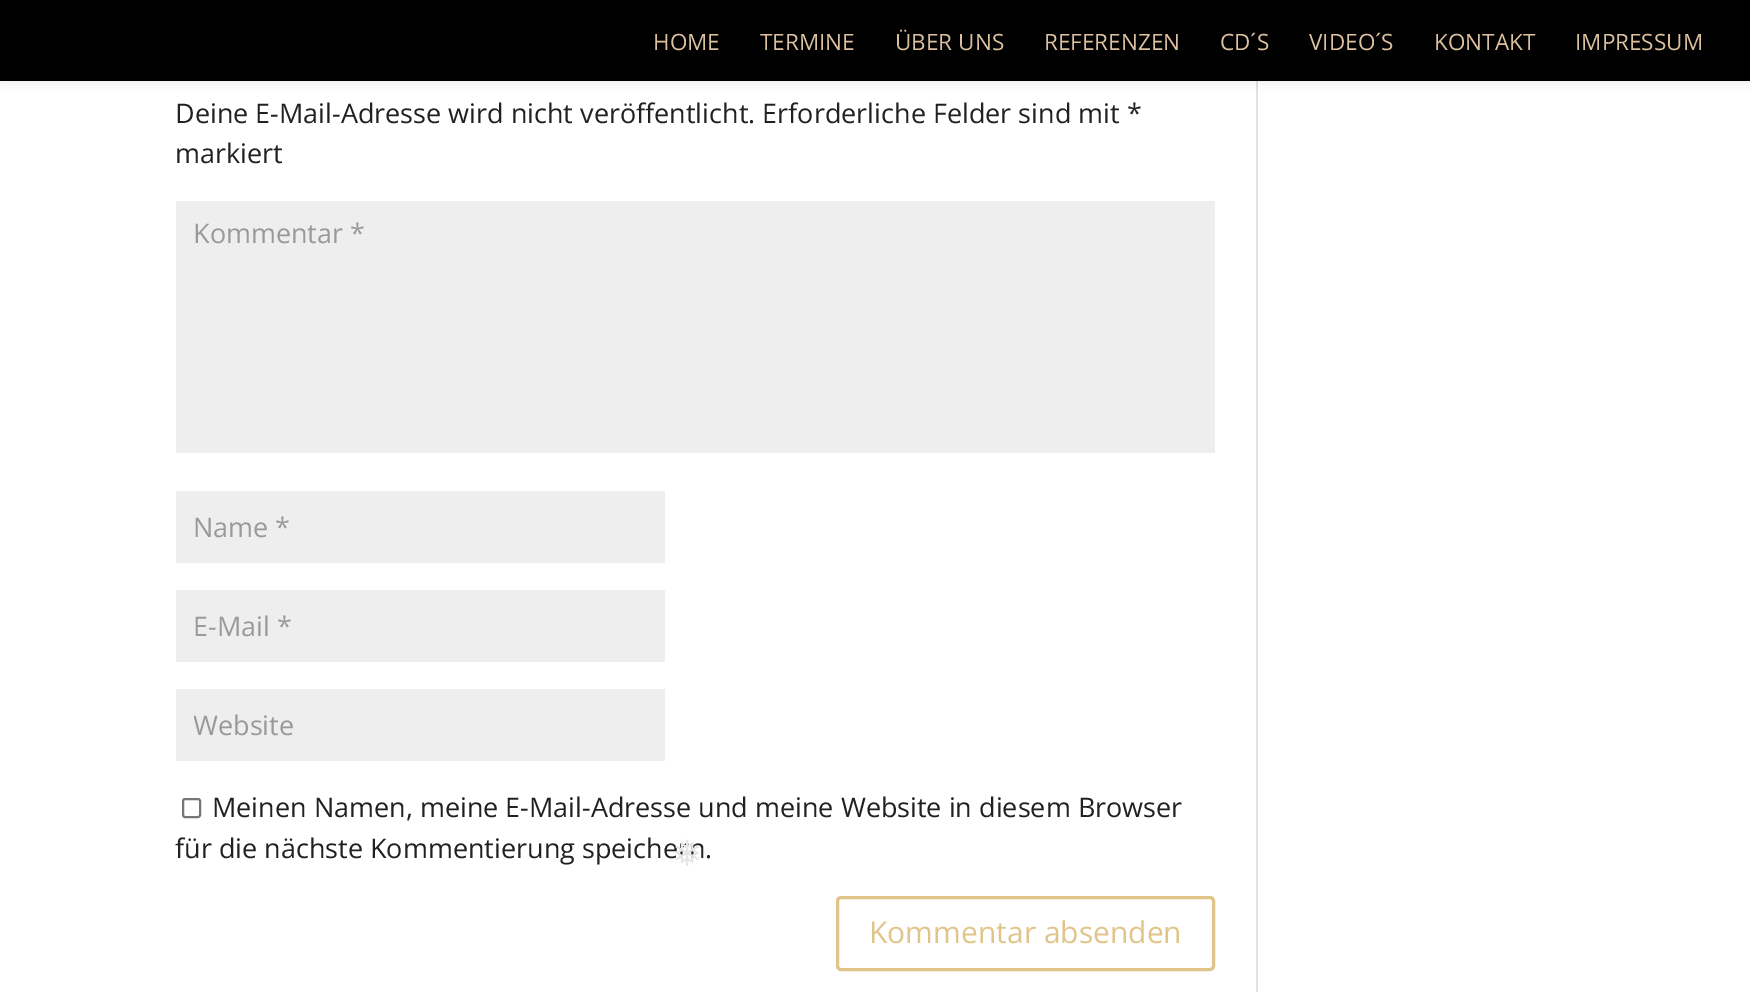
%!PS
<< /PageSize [1750 992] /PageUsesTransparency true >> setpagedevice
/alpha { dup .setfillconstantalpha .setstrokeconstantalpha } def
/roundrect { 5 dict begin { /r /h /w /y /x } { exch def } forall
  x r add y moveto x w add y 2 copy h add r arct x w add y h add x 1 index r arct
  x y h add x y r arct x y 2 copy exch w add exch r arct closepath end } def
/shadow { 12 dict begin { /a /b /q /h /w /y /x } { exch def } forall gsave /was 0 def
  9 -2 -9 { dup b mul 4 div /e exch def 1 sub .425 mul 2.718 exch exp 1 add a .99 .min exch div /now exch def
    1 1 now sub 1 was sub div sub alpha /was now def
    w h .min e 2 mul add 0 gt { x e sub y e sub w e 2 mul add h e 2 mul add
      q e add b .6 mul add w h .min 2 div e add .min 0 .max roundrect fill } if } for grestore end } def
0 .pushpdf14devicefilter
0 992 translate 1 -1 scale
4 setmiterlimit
1 setgray
0 0 1750 992 rectfill
0.886 setgray
1256 81 2 911 rectfill
0 setgray
0 0 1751 81 0 5 0.1 shadow
0 0 1750 81 rectfill
/OpenSans-Regular [22.5 0 0 -22.5 0 0] selectfont
0.863 0.757 0.62 setrgbcolor
653 50 moveto (HOME) show
760 50 moveto (TERMINE) show
895 50 moveto (ÜBER UNS) show
1044 50 moveto (REFERENZEN) show
1220 50 moveto (CD´S) show
1309 50 moveto (VIDEO´S) show
1434 50 moveto (KONTAKT) show
1575 50 moveto (IMPRESSUM) show
/OpenSans-Regular [27 0 0 -27 0 0] selectfont
0.125 0.129 0.141 setrgbcolor
175 123 moveto (Deine E-Mail-Adresse wird nicht veröffentlicht. Erforderliche Felder sind mit *) show
175 163 moveto (markiert) show
0.933 setgray
176 201 1039 252 rectfill
0.6 setgray
193 243 moveto (Kommentar *) show
0.933 setgray
176 491 489 72 rectfill
0.6 setgray
193 537 moveto (Name *) show
0.933 setgray
176 590 489 72 rectfill
0.6 setgray
193 636 moveto (E-Mail *) show
0.933 setgray
176 689 489 72 rectfill
gsave
194 707 453 36 rectclip
0.6 setgray
193 735 moveto (Website) show
grestore
0.463 setgray
2 setlinewidth
183 799 17 18 2 roundrect stroke
0.125 0.129 0.141 setrgbcolor
212 817 moveto (Meinen Namen, meine E-Mail-Adresse und meine Website in diesem Browser) show
175 858 moveto (für die nächste Kommentierung speichern.) show
0.878 0.773 0.545 setrgbcolor
3 setlinewidth
837.5 897.5 376 72 3.5 roundrect stroke
/OpenSans-Regular [30 0 0 -30 0 0] selectfont
869 943 moveto (Kommentar absenden) show
/DejaVuSans-Regular [36 0 0 -36 0 0] selectfont
0.894 0.898 0.898 setrgbcolor
672 866 moveto (❅) show
.poppdf14devicefilter showpage
